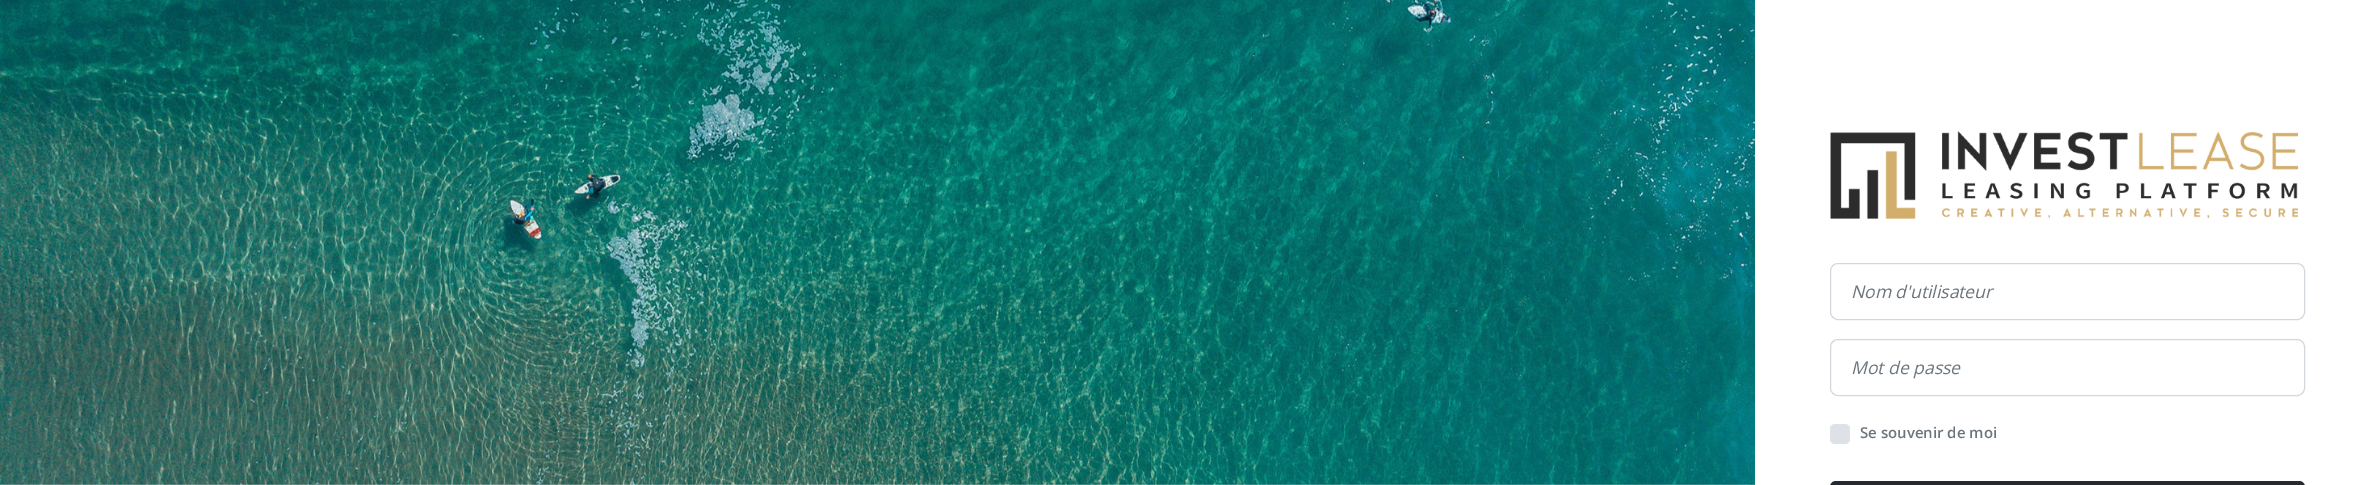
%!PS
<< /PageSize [2379 485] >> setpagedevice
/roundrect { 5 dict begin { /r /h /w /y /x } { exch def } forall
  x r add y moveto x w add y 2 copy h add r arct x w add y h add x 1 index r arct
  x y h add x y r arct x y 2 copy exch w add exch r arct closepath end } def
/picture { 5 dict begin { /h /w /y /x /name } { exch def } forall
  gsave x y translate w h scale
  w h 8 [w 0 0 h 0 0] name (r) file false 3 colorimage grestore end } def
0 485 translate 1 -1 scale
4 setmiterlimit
1 setgray
0 0 2379 485 rectfill
(img1.rgb) 0 0 1755 485 picture
(img2.rgb) 1830 131 469 88 picture
0.827 0.847 0.871 setrgbcolor
1830.5 263.5 474 56 7.5 roundrect stroke
/OpenSans-Italic [17.5 0 0 -17.5 0 0] selectfont
0.424 0.459 0.49 setrgbcolor
1851 298 moveto (Nom d'utilisateur) show
0.827 0.847 0.871 setrgbcolor
1830.5 339.5 474 56 7.5 roundrect stroke
0.424 0.459 0.49 setrgbcolor
1851 374 moveto (Mot de passe) show
0.871 0.886 0.902 setrgbcolor
1830 424 20 20 5 roundrect fill
/OpenSans-SemiBold [15 0 0 -15 0 0] selectfont
0.424 0.459 0.49 setrgbcolor
1860 438 moveto (Se souvenir de moi) show
0.141 0.165 0.188 setrgbcolor
1830 481 475 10 6 roundrect fill
showpage
